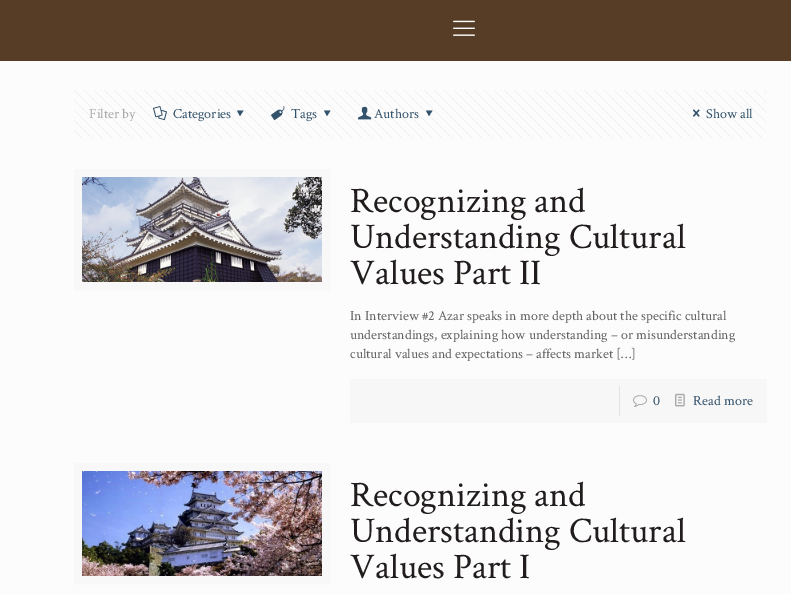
%!PS
<< /PageSize [791 594] >> setpagedevice
/picture { 5 dict begin { /h /w /y /x /name } { exch def } forall
  gsave x y translate w h scale
  w h 8 [w 0 0 h 0 0] name (r) file false 3 colorimage grestore end } def
0 594 translate 1 -1 scale
4 setmiterlimit
0.988 setgray
0 0 791 594 rectfill
0.341 0.239 0.149 setrgbcolor
0 0 791 61 rectfill
(img1.rgb) 453 20 22 16 picture
(img2.rgb) 74 90 693 49 picture
/CrimsonText-Regular [14 0 0 -14 0 0] selectfont
0.659 setgray
89 118 moveto (Filter by) show
(img3.rgb) 153 106 14 15 picture
0.2 0.322 0.42 setrgbcolor
173 118 moveto (Categories) show
newpath 243.5 110.5 moveto 240 116 lineto 237 110.5 lineto closepath fill
(img4.rgb) 271 106 14 14 picture
291 118 moveto (Tags) show
newpath 330.5 110.5 moveto 327 116 lineto 324 110.5 lineto closepath fill
(img5.rgb) 358 106 14 14 picture
374 118 moveto (Authors) show
newpath 432.5 110.5 moveto 429 116 lineto 426 110.5 lineto closepath fill
(img6.rgb) 693 109 7 8 picture
706 118 moveto (Show all) show
0.973 setgray
8 setlinewidth
78 173 248 113 rectstroke
(img7.rgb) 82 177 240 105 picture
/CrimsonText-Regular [36 0 0 -36 0 0] selectfont
0.125 0.114 0.11 setrgbcolor
350 212 moveto (Recognizing and) show
350 248 moveto (Understanding Cultural) show
350 284 moveto (Values Part II) show
/CrimsonText-Regular [14 0 0 -14 0 0] selectfont
0.384 setgray
350 320 moveto (In Interview #2 Azar speaks in more depth about the specific cultural) show
350 339 moveto (understandings, explaining how understanding – or misunderstanding) show
350 358 moveto (cultural values and expectations – affects market […]) show
0.969 setgray
350 379 417 44 rectfill
0.89 setgray
619 386 1 30 rectfill
(img8.rgb) 633 395 14 12 picture
0.2 0.322 0.42 setrgbcolor
653 405 moveto (0) show
(img9.rgb) 675 393 10 14 picture
693 405 moveto (Read more) show
0.973 setgray
78 467 248 113 rectstroke
(img10.rgb) 82 471 240 105 picture
/CrimsonText-Regular [36 0 0 -36 0 0] selectfont
0.125 0.114 0.11 setrgbcolor
350 506 moveto (Recognizing and) show
350 542 moveto (Understanding Cultural) show
350 578 moveto (Values Part I) show
showpage
